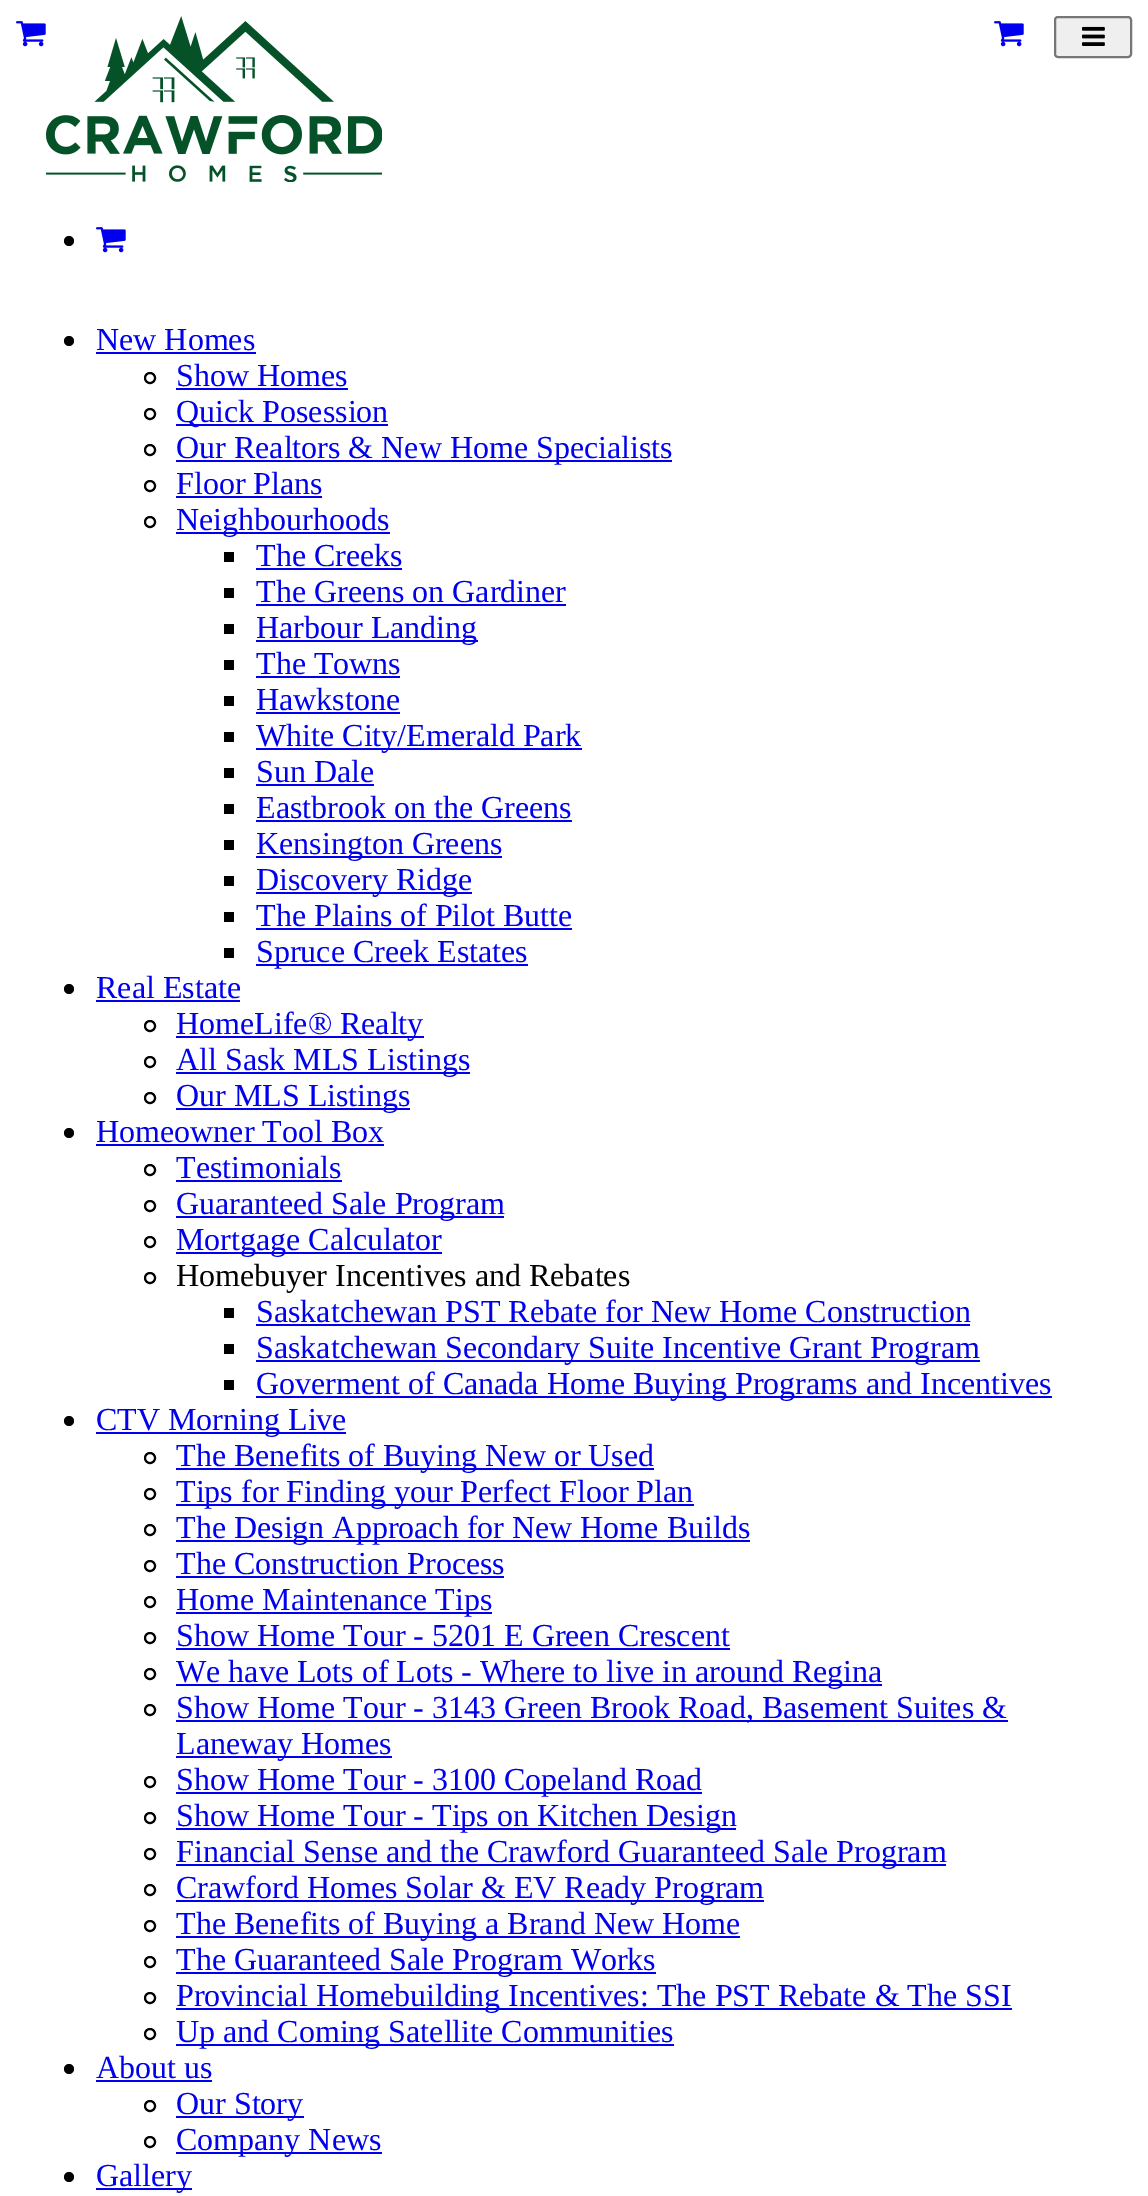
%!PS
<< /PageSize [1148 2196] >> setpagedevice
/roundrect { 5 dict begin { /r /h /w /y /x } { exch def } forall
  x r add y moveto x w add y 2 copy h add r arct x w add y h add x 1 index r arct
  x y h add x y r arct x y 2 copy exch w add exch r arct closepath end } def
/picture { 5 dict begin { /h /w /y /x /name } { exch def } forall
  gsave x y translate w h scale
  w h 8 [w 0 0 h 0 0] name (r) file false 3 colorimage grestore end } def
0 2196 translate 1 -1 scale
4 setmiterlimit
1 setgray
0 0 1148 2196 rectfill
(img1.rgb) 16 21 30 26 picture
(img2.rgb) 46 16 336 166 picture
(img1.rgb) 994 21 30 26 picture
0.937 setgray
1055 17 76 40 3 roundrect gsave fill grestore
0.463 setgray
2 setlinewidth
stroke
(img3.rgb) 1082 26 23 20 picture
0 setgray
newpath 69 241 5 0 360 arc closepath fill
(img1.rgb) 96 227 30 26 picture
newpath 69 341 5 0 360 arc closepath fill
/LiberationSerif-Regular [32 0 0 -32 0 0] selectfont
0 0 0.933 setrgbcolor
96 350 moveto (New Homes) show
96 352 160 2 rectfill
0 setgray
newpath 150 378 5 0 360 arc closepath stroke
0 0 0.933 setrgbcolor
176 386 moveto (Show Homes) show
176 388 172 2 rectfill
0 setgray
newpath 150 414 5 0 360 arc closepath stroke
0 0 0.933 setrgbcolor
176 424 212 2 rectfill
176 422 moveto (Quick Posession) show
0 setgray
newpath 150 450 5 0 360 arc closepath stroke
0 0 0.933 setrgbcolor
176 460 496 2 rectfill
176 458 moveto (Our Realtors & New Home Specialists) show
0 setgray
newpath 150 486 5 0 360 arc closepath stroke
0 0 0.933 setrgbcolor
176 494 moveto (Floor Plans) show
176 496 146 2 rectfill
0 setgray
newpath 150 522 5 0 360 arc closepath stroke
0 0 0.933 setrgbcolor
176 532 214 2 rectfill
176 530 moveto (Neighbourhoods) show
0 setgray
224 552 10 10 rectfill
0 0 0.933 setrgbcolor
256 566 moveto (The Creeks) show
256 568 146 2 rectfill
0 setgray
224 588 10 10 rectfill
0 0 0.933 setrgbcolor
256 602 moveto (The Greens on Gardiner) show
256 604 310 2 rectfill
0 setgray
224 624 10 10 rectfill
0 0 0.933 setrgbcolor
256 640 222 2 rectfill
256 638 moveto (Harbour Landing) show
0 setgray
224 660 10 10 rectfill
0 0 0.933 setrgbcolor
256 674 moveto (The Towns) show
256 676 144 2 rectfill
0 setgray
224 696 10 10 rectfill
0 0 0.933 setrgbcolor
256 710 moveto (Hawkstone) show
256 712 144 2 rectfill
0 setgray
224 732 10 10 rectfill
0 0 0.933 setrgbcolor
256 748 326 2 rectfill
256 746 moveto (White City/Emerald Park) show
0 setgray
224 768 10 10 rectfill
0 0 0.933 setrgbcolor
256 782 moveto (Sun Dale) show
256 784 118 2 rectfill
0 setgray
224 804 10 10 rectfill
0 0 0.933 setrgbcolor
256 818 moveto (Eastbrook on the Greens) show
256 820 316 2 rectfill
0 setgray
224 840 10 10 rectfill
0 0 0.933 setrgbcolor
256 856 246 2 rectfill
256 854 moveto (Kensington Greens) show
0 setgray
224 876 10 10 rectfill
0 0 0.933 setrgbcolor
256 892 216 2 rectfill
256 890 moveto (Discovery Ridge) show
0 setgray
224 912 10 10 rectfill
0 0 0.933 setrgbcolor
256 926 moveto (The Plains of Pilot Butte) show
256 928 316 2 rectfill
0 setgray
224 948 10 10 rectfill
0 0 0.933 setrgbcolor
256 964 272 2 rectfill
256 962 moveto (Spruce Creek Estates) show
0 setgray
newpath 69 989 5 0 360 arc closepath fill
0 0 0.933 setrgbcolor
96 998 moveto (Real Estate) show
96 1000 144 2 rectfill
0 setgray
newpath 150 1026 5 0 360 arc closepath stroke
0 0 0.933 setrgbcolor
176 1036 248 2 rectfill
176 1034 moveto (HomeLife® Realty) show
0 setgray
newpath 150 1062 5 0 360 arc closepath stroke
0 0 0.933 setrgbcolor
176 1072 294 2 rectfill
176 1070 moveto (All Sask MLS Listings) show
0 setgray
newpath 150 1098 5 0 360 arc closepath stroke
0 0 0.933 setrgbcolor
176 1108 234 2 rectfill
176 1106 moveto (Our MLS Listings) show
0 setgray
newpath 69 1133 5 0 360 arc closepath fill
0 0 0.933 setrgbcolor
96 1142 moveto (Homeowner Tool Box) show
96 1144 288 2 rectfill
0 setgray
newpath 150 1170 5 0 360 arc closepath stroke
0 0 0.933 setrgbcolor
176 1178 moveto (Testimonials) show
176 1180 166 2 rectfill
0 setgray
newpath 150 1206 5 0 360 arc closepath stroke
0 0 0.933 setrgbcolor
176 1216 328 2 rectfill
176 1214 moveto (Guaranteed Sale Program) show
0 setgray
newpath 150 1242 5 0 360 arc closepath stroke
0 0 0.933 setrgbcolor
176 1252 266 2 rectfill
176 1250 moveto (Mortgage Calculator) show
0 setgray
newpath 150 1278 5 0 360 arc closepath stroke
176 1286 moveto (Homebuyer Incentives and Rebates) show
224 1308 10 10 rectfill
0 0 0.933 setrgbcolor
256 1322 moveto (Saskatchewan PST Rebate for New Home Construction) show
256 1324 714 2 rectfill
0 setgray
224 1344 10 10 rectfill
0 0 0.933 setrgbcolor
256 1360 724 2 rectfill
256 1358 moveto (Saskatchewan Secondary Suite Incentive Grant Program) show
0 setgray
224 1380 10 10 rectfill
0 0 0.933 setrgbcolor
256 1396 796 2 rectfill
256 1394 moveto (Goverment of Canada Home Buying Programs and Incentives) show
0 setgray
newpath 69 1421 5 0 360 arc closepath fill
0 0 0.933 setrgbcolor
96 1432 250 2 rectfill
96 1430 moveto (CTV Morning Live) show
0 setgray
newpath 150 1458 5 0 360 arc closepath stroke
0 0 0.933 setrgbcolor
176 1468 478 2 rectfill
176 1466 moveto (The Benefits of Buying New or Used) show
0 setgray
newpath 150 1494 5 0 360 arc closepath stroke
0 0 0.933 setrgbcolor
176 1504 518 2 rectfill
176 1502 moveto (Tips for Finding your Perfect Floor Plan) show
0 setgray
newpath 150 1530 5 0 360 arc closepath stroke
0 0 0.933 setrgbcolor
176 1540 574 2 rectfill
176 1538 moveto (The Design Approach for New Home Builds) show
0 setgray
newpath 150 1566 5 0 360 arc closepath stroke
0 0 0.933 setrgbcolor
176 1574 moveto (The Construction Process) show
176 1576 328 2 rectfill
0 setgray
newpath 150 1602 5 0 360 arc closepath stroke
0 0 0.933 setrgbcolor
176 1612 316 2 rectfill
176 1610 moveto (Home Maintenance Tips) show
0 setgray
newpath 150 1638 5 0 360 arc closepath stroke
0 0 0.933 setrgbcolor
176 1646 moveto (Show Home Tour - 5201 E Green Crescent) show
176 1648 554 2 rectfill
0 setgray
newpath 150 1674 5 0 360 arc closepath stroke
0 0 0.933 setrgbcolor
176 1684 706 2 rectfill
176 1682 moveto (We have Lots of Lots - Where to live in around Regina) show
0 setgray
newpath 150 1710 5 0 360 arc closepath stroke
0 0 0.933 setrgbcolor
176 1720 832 2 rectfill
176 1718 moveto (Show Home Tour - 3143 Green Brook Road, Basement Suites &) show
176 1756 216 2 rectfill
176 1754 moveto (Laneway Homes) show
0 setgray
newpath 150 1782 5 0 360 arc closepath stroke
0 0 0.933 setrgbcolor
176 1792 526 2 rectfill
176 1790 moveto (Show Home Tour - 3100 Copeland Road) show
0 setgray
newpath 150 1818 5 0 360 arc closepath stroke
0 0 0.933 setrgbcolor
176 1828 560 2 rectfill
176 1826 moveto (Show Home Tour - Tips on Kitchen Design) show
0 setgray
newpath 150 1854 5 0 360 arc closepath stroke
0 0 0.933 setrgbcolor
176 1864 770 2 rectfill
176 1862 moveto (Financial Sense and the Crawford Guaranteed Sale Program) show
0 setgray
newpath 150 1890 5 0 360 arc closepath stroke
0 0 0.933 setrgbcolor
176 1900 588 2 rectfill
176 1898 moveto (Crawford Homes Solar & EV Ready Program) show
0 setgray
newpath 150 1926 5 0 360 arc closepath stroke
0 0 0.933 setrgbcolor
176 1936 564 2 rectfill
176 1934 moveto (The Benefits of Buying a Brand New Home) show
0 setgray
newpath 150 1962 5 0 360 arc closepath stroke
0 0 0.933 setrgbcolor
176 1972 480 2 rectfill
176 1970 moveto (The Guaranteed Sale Program Works) show
0 setgray
newpath 150 1998 5 0 360 arc closepath stroke
0 0 0.933 setrgbcolor
176 2008 836 2 rectfill
176 2006 moveto (Provincial Homebuilding Incentives: The PST Rebate & The SSI) show
0 setgray
newpath 150 2034 5 0 360 arc closepath stroke
0 0 0.933 setrgbcolor
176 2044 498 2 rectfill
176 2042 moveto (Up and Coming Satellite Communities) show
0 setgray
newpath 69 2069 5 0 360 arc closepath fill
0 0 0.933 setrgbcolor
96 2078 moveto (About us) show
96 2080 116 2 rectfill
0 setgray
newpath 150 2106 5 0 360 arc closepath stroke
0 0 0.933 setrgbcolor
176 2116 128 2 rectfill
176 2114 moveto (Our Story) show
0 setgray
newpath 150 2142 5 0 360 arc closepath stroke
0 0 0.933 setrgbcolor
176 2152 206 2 rectfill
176 2150 moveto (Company News) show
0 setgray
newpath 69 2177 5 0 360 arc closepath fill
0 0 0.933 setrgbcolor
96 2188 96 2 rectfill
96 2186 moveto (Gallery) show
showpage
